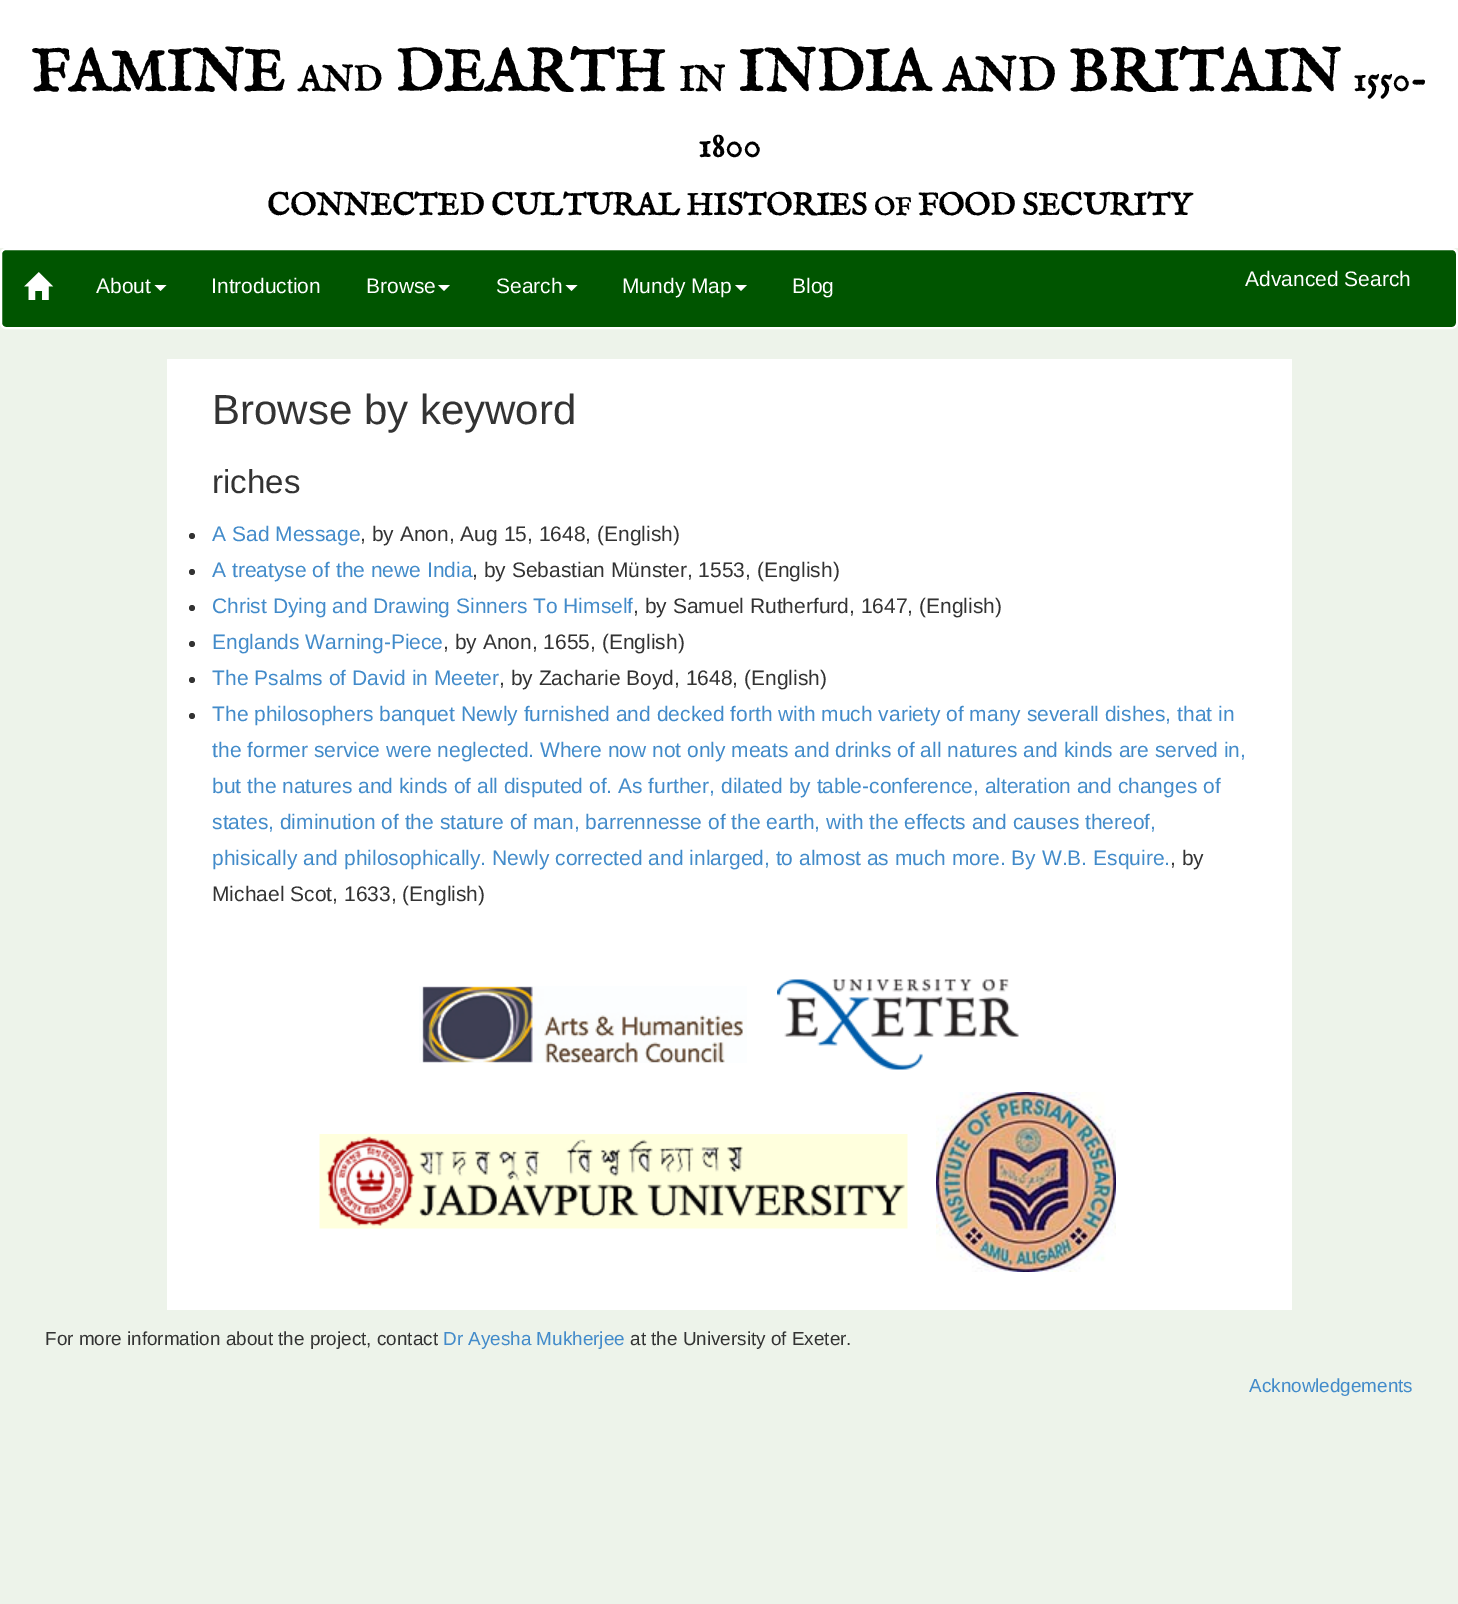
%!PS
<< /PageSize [1458 1604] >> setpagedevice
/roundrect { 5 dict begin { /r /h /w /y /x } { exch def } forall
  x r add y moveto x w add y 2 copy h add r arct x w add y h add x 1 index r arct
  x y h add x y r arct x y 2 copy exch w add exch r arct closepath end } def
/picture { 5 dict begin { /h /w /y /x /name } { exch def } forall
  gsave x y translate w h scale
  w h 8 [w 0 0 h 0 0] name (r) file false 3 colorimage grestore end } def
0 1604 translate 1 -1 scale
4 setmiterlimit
0.929 0.953 0.918 setrgbcolor
0 0 1458 1604 rectfill
1 setgray
0 0 1458 248 rectfill
/IMFELLEnglishSC-Bold [60 0 0 -60 0 0] selectfont
0 setgray
31 91 moveto (FAMINE) show
/IMFELLEnglishSC-Bold [36 0 0 -36 0 0] selectfont
298 91 moveto (AND) show
/IMFELLEnglishSC-Bold [60 0 0 -60 0 0] selectfont
395 91 moveto (DEARTH) show
/IMFELLEnglishSC-Bold [36 0 0 -36 0 0] selectfont
679 91 moveto (IN) show
/IMFELLEnglishSC-Bold [60 0 0 -60 0 0] selectfont
738 91 moveto (INDIA) show
/IMFELLEnglishSC-Bold [48 0 0 -48 0 0] selectfont
943 91 moveto (AND) show
/IMFELLEnglishSC-Bold [60 0 0 -60 0 0] selectfont
1068 91 moveto (BRITAIN) show
/IMFELLEnglishSC-Bold [36 0 0 -36 0 0] selectfont
1353 91 moveto (1550-) show
698 157 moveto (1800) show
/IMFELLEnglishSC-Bold [31.5 0 0 -31.5 0 0] selectfont
267 215 moveto (CONNECTED CULTURAL HISTORIES) show
/IMFELLEnglishSC-Bold [25 0 0 -25 0 0] selectfont
874 215 moveto (OF) show
/IMFELLEnglishSC-Bold [31.5 0 0 -31.5 0 0] selectfont
918 215 moveto (FOOD SECURITY) show
0 0.333 0 setrgbcolor
1 249 1456 79 5 roundrect gsave fill grestore
1 setgray
2 setlinewidth
stroke
(img1.rgb) 24 272 30 28 picture
/LiberationSans-Regular [21 0 0 -21 0 0] selectfont
96 293 moveto (About) show
newpath 154.5 285 moveto 166.5 285 lineto 160.5 291 lineto closepath fill
211 293 moveto (Introduction) show
366 293 moveto (Browse) show
newpath 438 285 moveto 450 285 lineto 444 291 lineto closepath fill
496 293 moveto (Search) show
newpath 565.5 285 moveto 577.5 285 lineto 571.5 291 lineto closepath fill
622 293 moveto (Mundy Map) show
newpath 735 285 moveto 747 285 lineto 741 291 lineto closepath fill
792 293 moveto (Blog) show
1245 286 moveto (Advanced Search) show
167 359 1125 951 rectfill
/LiberationSans-Regular [42 0 0 -42 0 0] selectfont
0.2 setgray
212 424 moveto (Browse by keyword) show
/LiberationSans-Regular [33 0 0 -33 0 0] selectfont
212 493 moveto (riches) show
newpath 192 536 3 0 360 arc closepath fill
/LiberationSans-Regular [21 0 0 -21 0 0] selectfont
0.259 0.545 0.792 setrgbcolor
212 541 moveto (A Sad Message) show
0.2 setgray
360 541 moveto (, by Anon, Aug 15, 1648, \(English\)) show
newpath 192 572 3 0 360 arc closepath fill
0.259 0.545 0.792 setrgbcolor
212 577 moveto (A treatyse of the newe India) show
0.2 setgray
472 577 moveto (, by Sebastian Münster, 1553, \(English\)) show
newpath 192 608 3 0 360 arc closepath fill
0.259 0.545 0.792 setrgbcolor
212 613 moveto (Christ Dying and Drawing Sinners To Himself) show
0.2 setgray
633 613 moveto (, by Samuel Rutherfurd, 1647, \(English\)) show
newpath 192 644 3 0 360 arc closepath fill
0.259 0.545 0.792 setrgbcolor
212 649 moveto (Englands Warning-Piece) show
0.2 setgray
443 649 moveto (, by Anon, 1655, \(English\)) show
newpath 192 680 3 0 360 arc closepath fill
0.259 0.545 0.792 setrgbcolor
212 685 moveto (The Psalms of David in Meeter) show
0.2 setgray
499 685 moveto (, by Zacharie Boyd, 1648, \(English\)) show
newpath 192 716 3 0 360 arc closepath fill
0.259 0.545 0.792 setrgbcolor
212 721 moveto (The philosophers banquet Newly furnished and decked forth with much variety of many severall dishes, that in) show
212 757 moveto (the former service were neglected. Where now not only meats and drinks of all natures and kinds are served in,) show
212 793 moveto (but the natures and kinds of all disputed of. As further, dilated by table-conference, alteration and changes of) show
212 829 moveto (states, diminution of the stature of man, barrennesse of the earth, with the effects and causes thereof,) show
212 865 moveto (phisically and philosophically. Newly corrected and inlarged, to almost as much more. By W.B. Esquire.) show
0.2 setgray
1170 865 moveto (, by) show
212 901 moveto (Michael Scot, 1633, \(English\)) show
(img2.rgb) 419 986 328 77 picture
(img3.rgb) 777 979 242 91 picture
(img4.rgb) 319 1134 589 95 picture
(img5.rgb) 936 1092 180 180 picture
/LiberationSans-Regular [18.9 0 0 -18.9 0 0] selectfont
45 1345 moveto (For more information about the project, contact) show
0.259 0.545 0.792 setrgbcolor
443 1345 moveto (Dr Ayesha Mukherjee) show
0.2 setgray
630 1345 moveto (at the University of Exeter.) show
0.259 0.545 0.792 setrgbcolor
1249 1392 moveto (Acknowledgements) show
showpage
